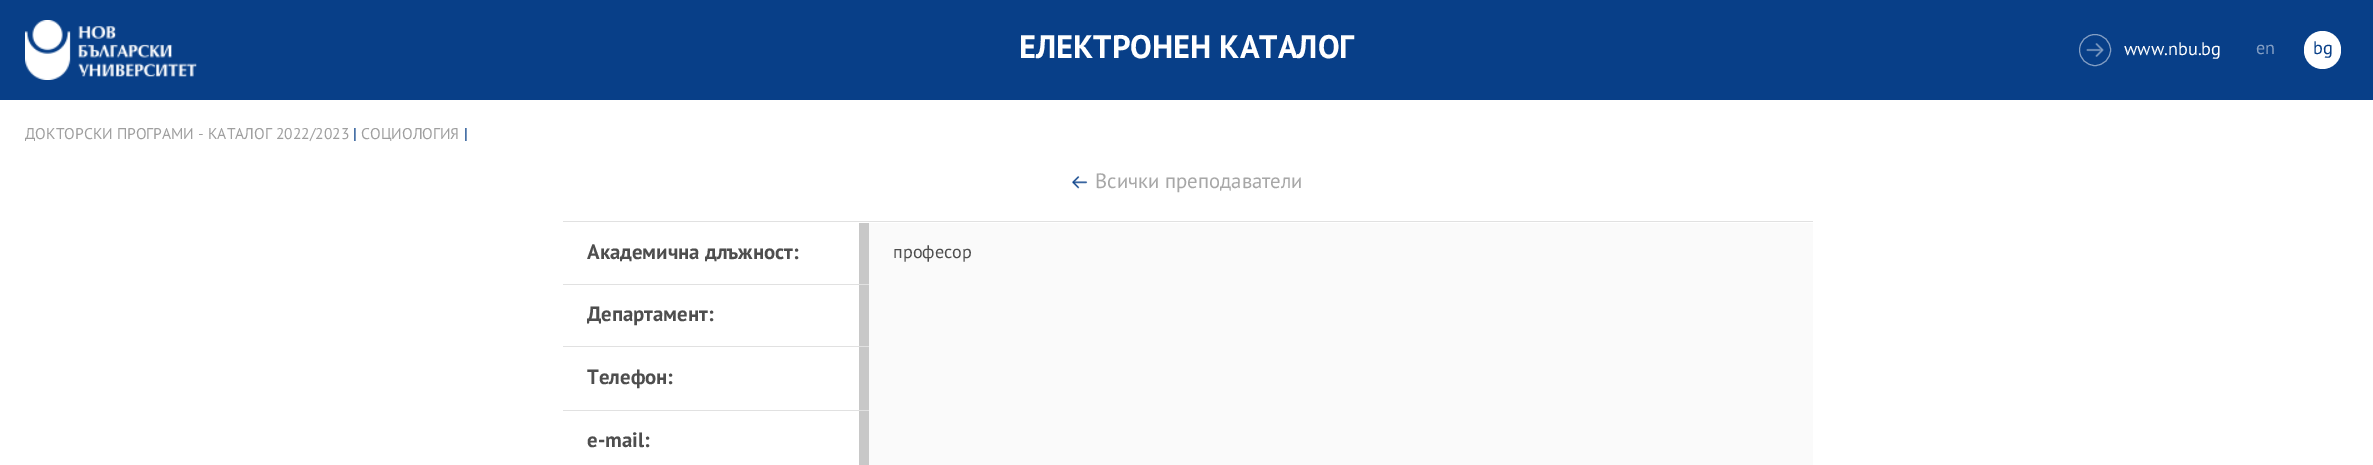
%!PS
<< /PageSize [2373 465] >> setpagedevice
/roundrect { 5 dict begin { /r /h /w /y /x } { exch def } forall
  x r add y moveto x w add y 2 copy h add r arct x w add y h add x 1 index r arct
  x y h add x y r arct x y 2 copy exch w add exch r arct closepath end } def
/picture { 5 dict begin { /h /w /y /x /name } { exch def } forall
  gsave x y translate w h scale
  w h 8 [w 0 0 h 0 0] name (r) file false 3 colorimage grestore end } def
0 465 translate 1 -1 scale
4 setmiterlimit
1 setgray
0 0 2373 465 rectfill
0.031 0.247 0.533 setrgbcolor
0 0 2373 100 rectfill
(img1.rgb) 25 20 172 60 picture
/PTSans-Bold [31.25 0 0 -31.25 0 0] selectfont
1 setgray
1019 58 moveto (ЕЛЕКТРОНЕН КАТАЛОГ) show
0.518 0.624 0.769 setrgbcolor
newpath 2095 50 15.5 0 360 arc closepath stroke
(img2.rgb) 2086 43 18 14 picture
/PTSans-Regular [17.5 0 0 -17.5 0 0] selectfont
1 setgray
2124 55 moveto (www.nbu.bg) show
0.518 0.624 0.769 setrgbcolor
2256 54 moveto (en) show
1 setgray
2304 31 37 38 18.5 roundrect fill
0.031 0.247 0.533 setrgbcolor
2313 54 moveto (bg) show
/PTSans-Regular [15 0 0 -15 0 0] selectfont
0.624 setgray
25 139 moveto (ДОКТОРСКИ ПРОГРАМИ - КАТАЛОГ 2022/2023) show
0.031 0.247 0.533 setrgbcolor
353 139 moveto (|) show
0.624 setgray
361 139 moveto (СОЦИОЛОГИЯ) show
0.031 0.247 0.533 setrgbcolor
464 139 moveto (|) show
(img3.rgb) 1072 176 16 13 picture
/PTSans-Regular [20 0 0 -20 0 0] selectfont
0.655 setgray
1095 188 moveto (Всички преподаватели) show
0.882 setgray
563 221 1250 1 rectfill
/PTSans-Bold [20 0 0 -20 0 0] selectfont
0.306 setgray
587 259 moveto (Академична длъжност:) show
0.784 setgray
859 223 10 61 rectfill
0.98 setgray
869 223 944 242 rectfill
/PTSans-Regular [17.5 0 0 -17.5 0 0] selectfont
0.306 setgray
893 258 moveto (професор) show
0.882 setgray
563 284 306 1 rectfill
/PTSans-Bold [20 0 0 -20 0 0] selectfont
0.306 setgray
587 321 moveto (Департамент:) show
0.784 setgray
859 285 10 180 rectfill
0.882 setgray
563 346 306 1 rectfill
0.306 setgray
587 384 moveto (Телефон:) show
0.882 setgray
563 410 306 1 rectfill
0.306 setgray
587 447 moveto (e-mail:) show
showpage
